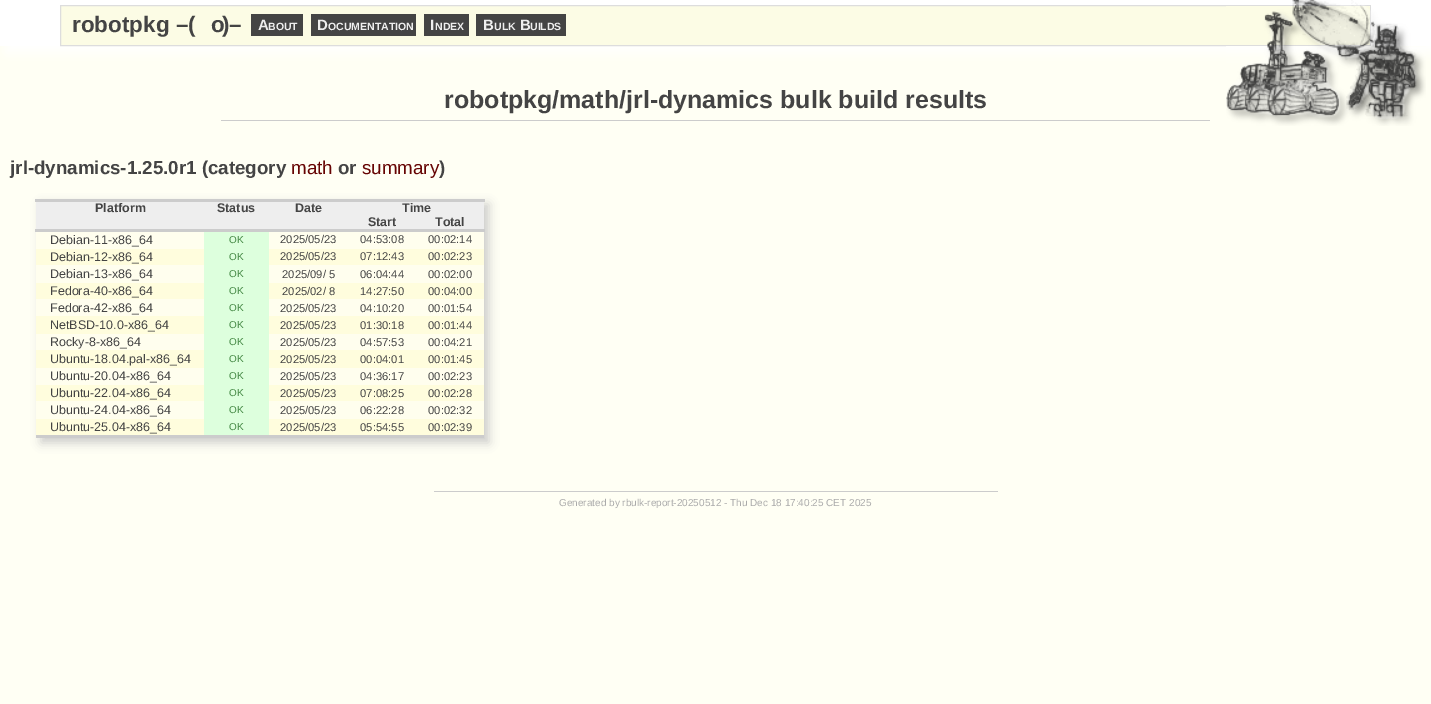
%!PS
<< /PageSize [1431 704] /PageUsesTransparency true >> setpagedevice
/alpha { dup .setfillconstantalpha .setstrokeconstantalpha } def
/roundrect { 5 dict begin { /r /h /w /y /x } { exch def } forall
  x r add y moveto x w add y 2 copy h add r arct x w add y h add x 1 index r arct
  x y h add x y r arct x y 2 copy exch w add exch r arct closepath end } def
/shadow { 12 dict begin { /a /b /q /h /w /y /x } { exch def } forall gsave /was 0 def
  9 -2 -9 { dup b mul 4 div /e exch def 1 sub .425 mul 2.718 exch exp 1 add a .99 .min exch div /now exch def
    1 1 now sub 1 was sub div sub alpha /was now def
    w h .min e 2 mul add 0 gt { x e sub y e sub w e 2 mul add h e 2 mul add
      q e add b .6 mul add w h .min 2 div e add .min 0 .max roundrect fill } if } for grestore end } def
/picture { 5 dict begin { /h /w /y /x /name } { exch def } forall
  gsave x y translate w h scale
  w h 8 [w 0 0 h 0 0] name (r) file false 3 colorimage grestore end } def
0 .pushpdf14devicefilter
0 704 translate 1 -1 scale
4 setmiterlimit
1 1 0.957 setrgbcolor
0 0 1431 704 rectfill
1 setgray
6 6 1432 47 0 6 1 shadow
0 0 1431 46 rectfill
0.988 0.988 0.898 setrgbcolor
newpath 60.5 5.5 moveto 1370.5 5.5 lineto 1370.5 45.5 lineto 60.5 45.5 lineto closepath gsave fill grestore
0.867 setgray
stroke
/LiberationSans-Bold [22.5 0 0 -22.5 0 0] selectfont
0.267 setgray
72 32 moveto (robotpkg –\() show
222 32 moveto (\)–) show
211 32 moveto (o) show
251 14 52 22 rectfill
/LiberationSans-Bold [15 0 0 -15 0 0] selectfont
0.933 setgray
258 30 moveto (A) show
/LiberationSans-Bold [10.5 0 0 -10.5 0 0] selectfont
268 30 moveto (BOUT) show
0.267 setgray
311 14 105 22 rectfill
/LiberationSans-Bold [15 0 0 -15 0 0] selectfont
0.933 setgray
317 30 moveto (D) show
/LiberationSans-Bold [10.5 0 0 -10.5 0 0] selectfont
328 30 moveto (OCUMENTATION) show
0.267 setgray
424 14 45 22 rectfill
/LiberationSans-Bold [15 0 0 -15 0 0] selectfont
0.933 setgray
430 30 moveto (I) show
/LiberationSans-Bold [10.5 0 0 -10.5 0 0] selectfont
435 30 moveto (NDEX) show
0.267 setgray
476 14 90 22 rectfill
/LiberationSans-Bold [15 0 0 -15 0 0] selectfont
0.933 setgray
483 30 moveto (B) show
/LiberationSans-Bold [10.5 0 0 -10.5 0 0] selectfont
494 30 moveto (ULK) show
/LiberationSans-Bold [15 0 0 -15 0 0] selectfont
520 30 moveto (B) show
/LiberationSans-Bold [10.5 0 0 -10.5 0 0] selectfont
530 30 moveto (UILDS) show
(img1.rgb) 1226 0 200 126 picture
0.8 setgray
221 120 989 1 rectfill
/LiberationSans-Bold [25 0 0 -25 0 0] selectfont
0.267 setgray
444 108 moveto (robotpkg/math/jrl-dynamics bulk build results) show
/LiberationSans-Bold [18.75 0 0 -18.75 0 0] selectfont
10 174 moveto (jrl-dynamics-1.25.0r1 \(category) show
/LiberationSans-Regular [18.75 0 0 -18.75 0 0] selectfont
0.4 0.016 0.012 setrgbcolor
291 174 moveto (math) show
/LiberationSans-Bold [18.75 0 0 -18.75 0 0] selectfont
0.267 setgray
338 174 moveto (or) show
/LiberationSans-Regular [18.75 0 0 -18.75 0 0] selectfont
0.4 0.016 0.012 setrgbcolor
362 174 moveto (summary) show
/LiberationSans-Bold [18.75 0 0 -18.75 0 0] selectfont
0.267 setgray
439 174 moveto (\)) show
0.8 setgray
41 204 448 239 0 5 1 shadow
36 435 448 3 rectfill
0.933 setgray
36 202 448 27 rectfill
0.8 setgray
35 199 450 3 rectfill
35 229 450 3 rectfill
/LiberationSans-Bold [12.5 0 0 -12.5 0 0] selectfont
0.267 setgray
95 212 moveto (Platform) show
217 212 moveto (Status) show
295 212 moveto (Date) show
402 212 moveto (Time) show
368 226 moveto (Start) show
435 226 moveto (Total) show
1 0.996 0.933 setrgbcolor
36 232 448 17 rectfill
/LiberationSans-Regular [12.5 0 0 -12.5 0 0] selectfont
0.267 setgray
50 244 moveto (Debian-11-x86_64) show
0.867 1 0.867 setrgbcolor
204 232 65 17 rectfill
/LiberationSans-Regular [10 0 0 -10 0 0] selectfont
0.267 0.533 0.267 setrgbcolor
229 243 moveto (OK) show
/LiberationSans-Regular [11.25 0 0 -11.25 0 0] selectfont
0.267 setgray
280 243 moveto (2025/05/23) show
360 243 moveto (04:53:08) show
428 243 moveto (00:02:14) show
1 0.992 0.867 setrgbcolor
36 249 448 16 rectfill
/LiberationSans-Regular [12.5 0 0 -12.5 0 0] selectfont
0.267 setgray
50 261 moveto (Debian-12-x86_64) show
0.867 1 0.867 setrgbcolor
204 249 65 16 rectfill
/LiberationSans-Regular [10 0 0 -10 0 0] selectfont
0.267 0.533 0.267 setrgbcolor
229 260 moveto (OK) show
/LiberationSans-Regular [11.25 0 0 -11.25 0 0] selectfont
0.267 setgray
280 260 moveto (2025/05/23) show
360 260 moveto (07:12:43) show
428 260 moveto (00:02:23) show
1 0.996 0.933 setrgbcolor
36 265 448 18 rectfill
/LiberationSans-Regular [12.5 0 0 -12.5 0 0] selectfont
0.267 setgray
50 278 moveto (Debian-13-x86_64) show
0.867 1 0.867 setrgbcolor
204 265 65 18 rectfill
/LiberationSans-Regular [10 0 0 -10 0 0] selectfont
0.267 0.533 0.267 setrgbcolor
229 277 moveto (OK) show
/LiberationSans-Regular [11.25 0 0 -11.25 0 0] selectfont
0.267 setgray
282 278 moveto (2025/09/ 5) show
360 278 moveto (06:04:44) show
428 278 moveto (00:02:00) show
1 0.992 0.867 setrgbcolor
36 283 448 16 rectfill
/LiberationSans-Regular [12.5 0 0 -12.5 0 0] selectfont
0.267 setgray
50 295 moveto (Fedora-40-x86_64) show
0.867 1 0.867 setrgbcolor
204 283 65 16 rectfill
/LiberationSans-Regular [10 0 0 -10 0 0] selectfont
0.267 0.533 0.267 setrgbcolor
229 294 moveto (OK) show
/LiberationSans-Regular [11.25 0 0 -11.25 0 0] selectfont
0.267 setgray
282 295 moveto (2025/02/ 8) show
360 295 moveto (14:27:50) show
428 295 moveto (00:04:00) show
1 0.996 0.933 setrgbcolor
36 299 448 17 rectfill
/LiberationSans-Regular [12.5 0 0 -12.5 0 0] selectfont
0.267 setgray
50 312 moveto (Fedora-42-x86_64) show
0.867 1 0.867 setrgbcolor
204 299 65 17 rectfill
/LiberationSans-Regular [10 0 0 -10 0 0] selectfont
0.267 0.533 0.267 setrgbcolor
229 311 moveto (OK) show
/LiberationSans-Regular [11.25 0 0 -11.25 0 0] selectfont
0.267 setgray
280 312 moveto (2025/05/23) show
360 312 moveto (04:10:20) show
428 312 moveto (00:01:54) show
1 0.992 0.867 setrgbcolor
36 316 448 18 rectfill
/LiberationSans-Regular [12.5 0 0 -12.5 0 0] selectfont
0.267 setgray
50 329 moveto (NetBSD-10.0-x86_64) show
0.867 1 0.867 setrgbcolor
204 316 65 18 rectfill
/LiberationSans-Regular [10 0 0 -10 0 0] selectfont
0.267 0.533 0.267 setrgbcolor
229 328 moveto (OK) show
/LiberationSans-Regular [11.25 0 0 -11.25 0 0] selectfont
0.267 setgray
280 329 moveto (2025/05/23) show
360 329 moveto (01:30:18) show
428 329 moveto (00:01:44) show
1 0.996 0.933 setrgbcolor
36 334 448 16 rectfill
/LiberationSans-Regular [12.5 0 0 -12.5 0 0] selectfont
0.267 setgray
50 346 moveto (Rocky-8-x86_64) show
0.867 1 0.867 setrgbcolor
204 334 65 16 rectfill
/LiberationSans-Regular [10 0 0 -10 0 0] selectfont
0.267 0.533 0.267 setrgbcolor
229 345 moveto (OK) show
/LiberationSans-Regular [11.25 0 0 -11.25 0 0] selectfont
0.267 setgray
280 346 moveto (2025/05/23) show
360 346 moveto (04:57:53) show
428 346 moveto (00:04:21) show
1 0.992 0.867 setrgbcolor
36 350 448 18 rectfill
/LiberationSans-Regular [12.5 0 0 -12.5 0 0] selectfont
0.267 setgray
50 363 moveto (Ubuntu-18.04.pal-x86_64) show
0.867 1 0.867 setrgbcolor
204 350 65 18 rectfill
/LiberationSans-Regular [10 0 0 -10 0 0] selectfont
0.267 0.533 0.267 setrgbcolor
229 362 moveto (OK) show
/LiberationSans-Regular [11.25 0 0 -11.25 0 0] selectfont
0.267 setgray
280 363 moveto (2025/05/23) show
360 363 moveto (00:04:01) show
428 363 moveto (00:01:45) show
1 0.996 0.933 setrgbcolor
36 368 448 17 rectfill
/LiberationSans-Regular [12.5 0 0 -12.5 0 0] selectfont
0.267 setgray
50 380 moveto (Ubuntu-20.04-x86_64) show
0.867 1 0.867 setrgbcolor
204 368 65 17 rectfill
/LiberationSans-Regular [10 0 0 -10 0 0] selectfont
0.267 0.533 0.267 setrgbcolor
229 379 moveto (OK) show
/LiberationSans-Regular [11.25 0 0 -11.25 0 0] selectfont
0.267 setgray
280 380 moveto (2025/05/23) show
360 380 moveto (04:36:17) show
428 380 moveto (00:02:23) show
1 0.992 0.867 setrgbcolor
36 385 448 16 rectfill
/LiberationSans-Regular [12.5 0 0 -12.5 0 0] selectfont
0.267 setgray
50 397 moveto (Ubuntu-22.04-x86_64) show
0.867 1 0.867 setrgbcolor
204 385 65 16 rectfill
/LiberationSans-Regular [10 0 0 -10 0 0] selectfont
0.267 0.533 0.267 setrgbcolor
229 396 moveto (OK) show
/LiberationSans-Regular [11.25 0 0 -11.25 0 0] selectfont
0.267 setgray
280 397 moveto (2025/05/23) show
360 397 moveto (07:08:25) show
428 397 moveto (00:02:28) show
1 0.996 0.933 setrgbcolor
36 401 448 18 rectfill
/LiberationSans-Regular [12.5 0 0 -12.5 0 0] selectfont
0.267 setgray
50 414 moveto (Ubuntu-24.04-x86_64) show
0.867 1 0.867 setrgbcolor
204 401 65 18 rectfill
/LiberationSans-Regular [10 0 0 -10 0 0] selectfont
0.267 0.533 0.267 setrgbcolor
229 413 moveto (OK) show
/LiberationSans-Regular [11.25 0 0 -11.25 0 0] selectfont
0.267 setgray
280 414 moveto (2025/05/23) show
360 414 moveto (06:22:28) show
428 414 moveto (00:02:32) show
1 0.992 0.867 setrgbcolor
36 419 448 16 rectfill
/LiberationSans-Regular [12.5 0 0 -12.5 0 0] selectfont
0.267 setgray
50 431 moveto (Ubuntu-25.04-x86_64) show
0.867 1 0.867 setrgbcolor
204 419 65 16 rectfill
/LiberationSans-Regular [10 0 0 -10 0 0] selectfont
0.267 0.533 0.267 setrgbcolor
229 430 moveto (OK) show
/LiberationSans-Regular [11.25 0 0 -11.25 0 0] selectfont
0.267 setgray
280 431 moveto (2025/05/23) show
360 431 moveto (05:54:55) show
428 431 moveto (00:02:39) show
0.8 setgray
434 491 564 1 rectfill
/LiberationSans-Regular [10 0 0 -10 0 0] selectfont
0.667 setgray
559 506 moveto (Generated by rbulk-report-20250512 - Thu Dec 18 17:40:25 CET 2025) show
.poppdf14devicefilter showpage
